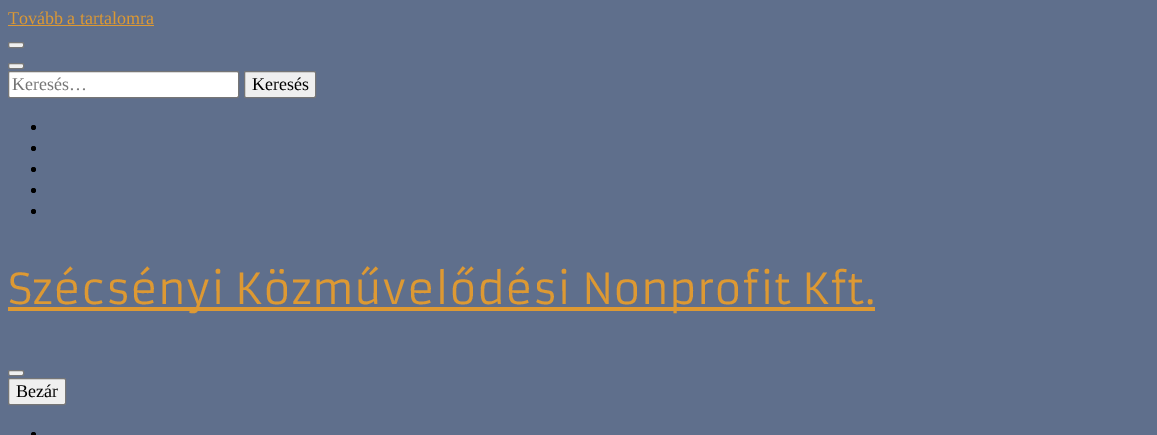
%!PS
<< /PageSize [1157 435] >> setpagedevice
/roundrect { 5 dict begin { /r /h /w /y /x } { exch def } forall
  x r add y moveto x w add y 2 copy h add r arct x w add y h add x 1 index r arct
  x y h add x y r arct x y 2 copy exch w add exch r arct closepath end } def
0 435 translate 1 -1 scale
4 setmiterlimit
0.373 0.435 0.549 setrgbcolor
0 0 1157 435 rectfill
/LiberationSerif-Regular [18 0 0 -18 0 0] selectfont
0.867 0.6 0.2 setrgbcolor
8 24 moveto (Tovább a tartalomra) show
8 25 146 1 rectfill
0.937 setgray
8.5 42.5 15 5 1.5 roundrect gsave fill grestore
0.463 setgray
stroke
0.937 setgray
8.5 63.5 15 5 1.5 roundrect gsave fill grestore
0.463 setgray
stroke
1 setgray
8.5 71.5 230 26 1.5 roundrect gsave fill grestore
0.463 setgray
stroke
0.459 setgray
12 90 moveto (Keresés…) show
0.937 setgray
244.5 71.5 71 26 1.5 roundrect gsave fill grestore
0.463 setgray
stroke
0 setgray
252 90 moveto (Keresés) show
newpath 33.5 127.5 2.5 0 360 arc closepath fill
newpath 33.5 148.5 2.5 0 360 arc closepath fill
newpath 33.5 169.5 2.5 0 360 arc closepath fill
newpath 33.5 190.5 2.5 0 360 arc closepath fill
newpath 33.5 211.5 2.5 0 360 arc closepath fill
0.867 0.6 0.2 setrgbcolor
8 307 867 4 rectfill
/Armata-Regular [42 0 0 -42 0 0] selectfont
8 304 moveto (Szécsényi Közművelődési Nonprofit Kft.) show
0.937 setgray
8.5 370.5 15 5 1.5 roundrect gsave fill grestore
0.463 setgray
stroke
0.937 setgray
8.5 378.5 57 26 1.5 roundrect gsave fill grestore
0.463 setgray
stroke
/LiberationSerif-Regular [18 0 0 -18 0 0] selectfont
0 setgray
16 397 moveto (Bezár) show
newpath 33.5 434.5 2.5 0 360 arc closepath fill
showpage
